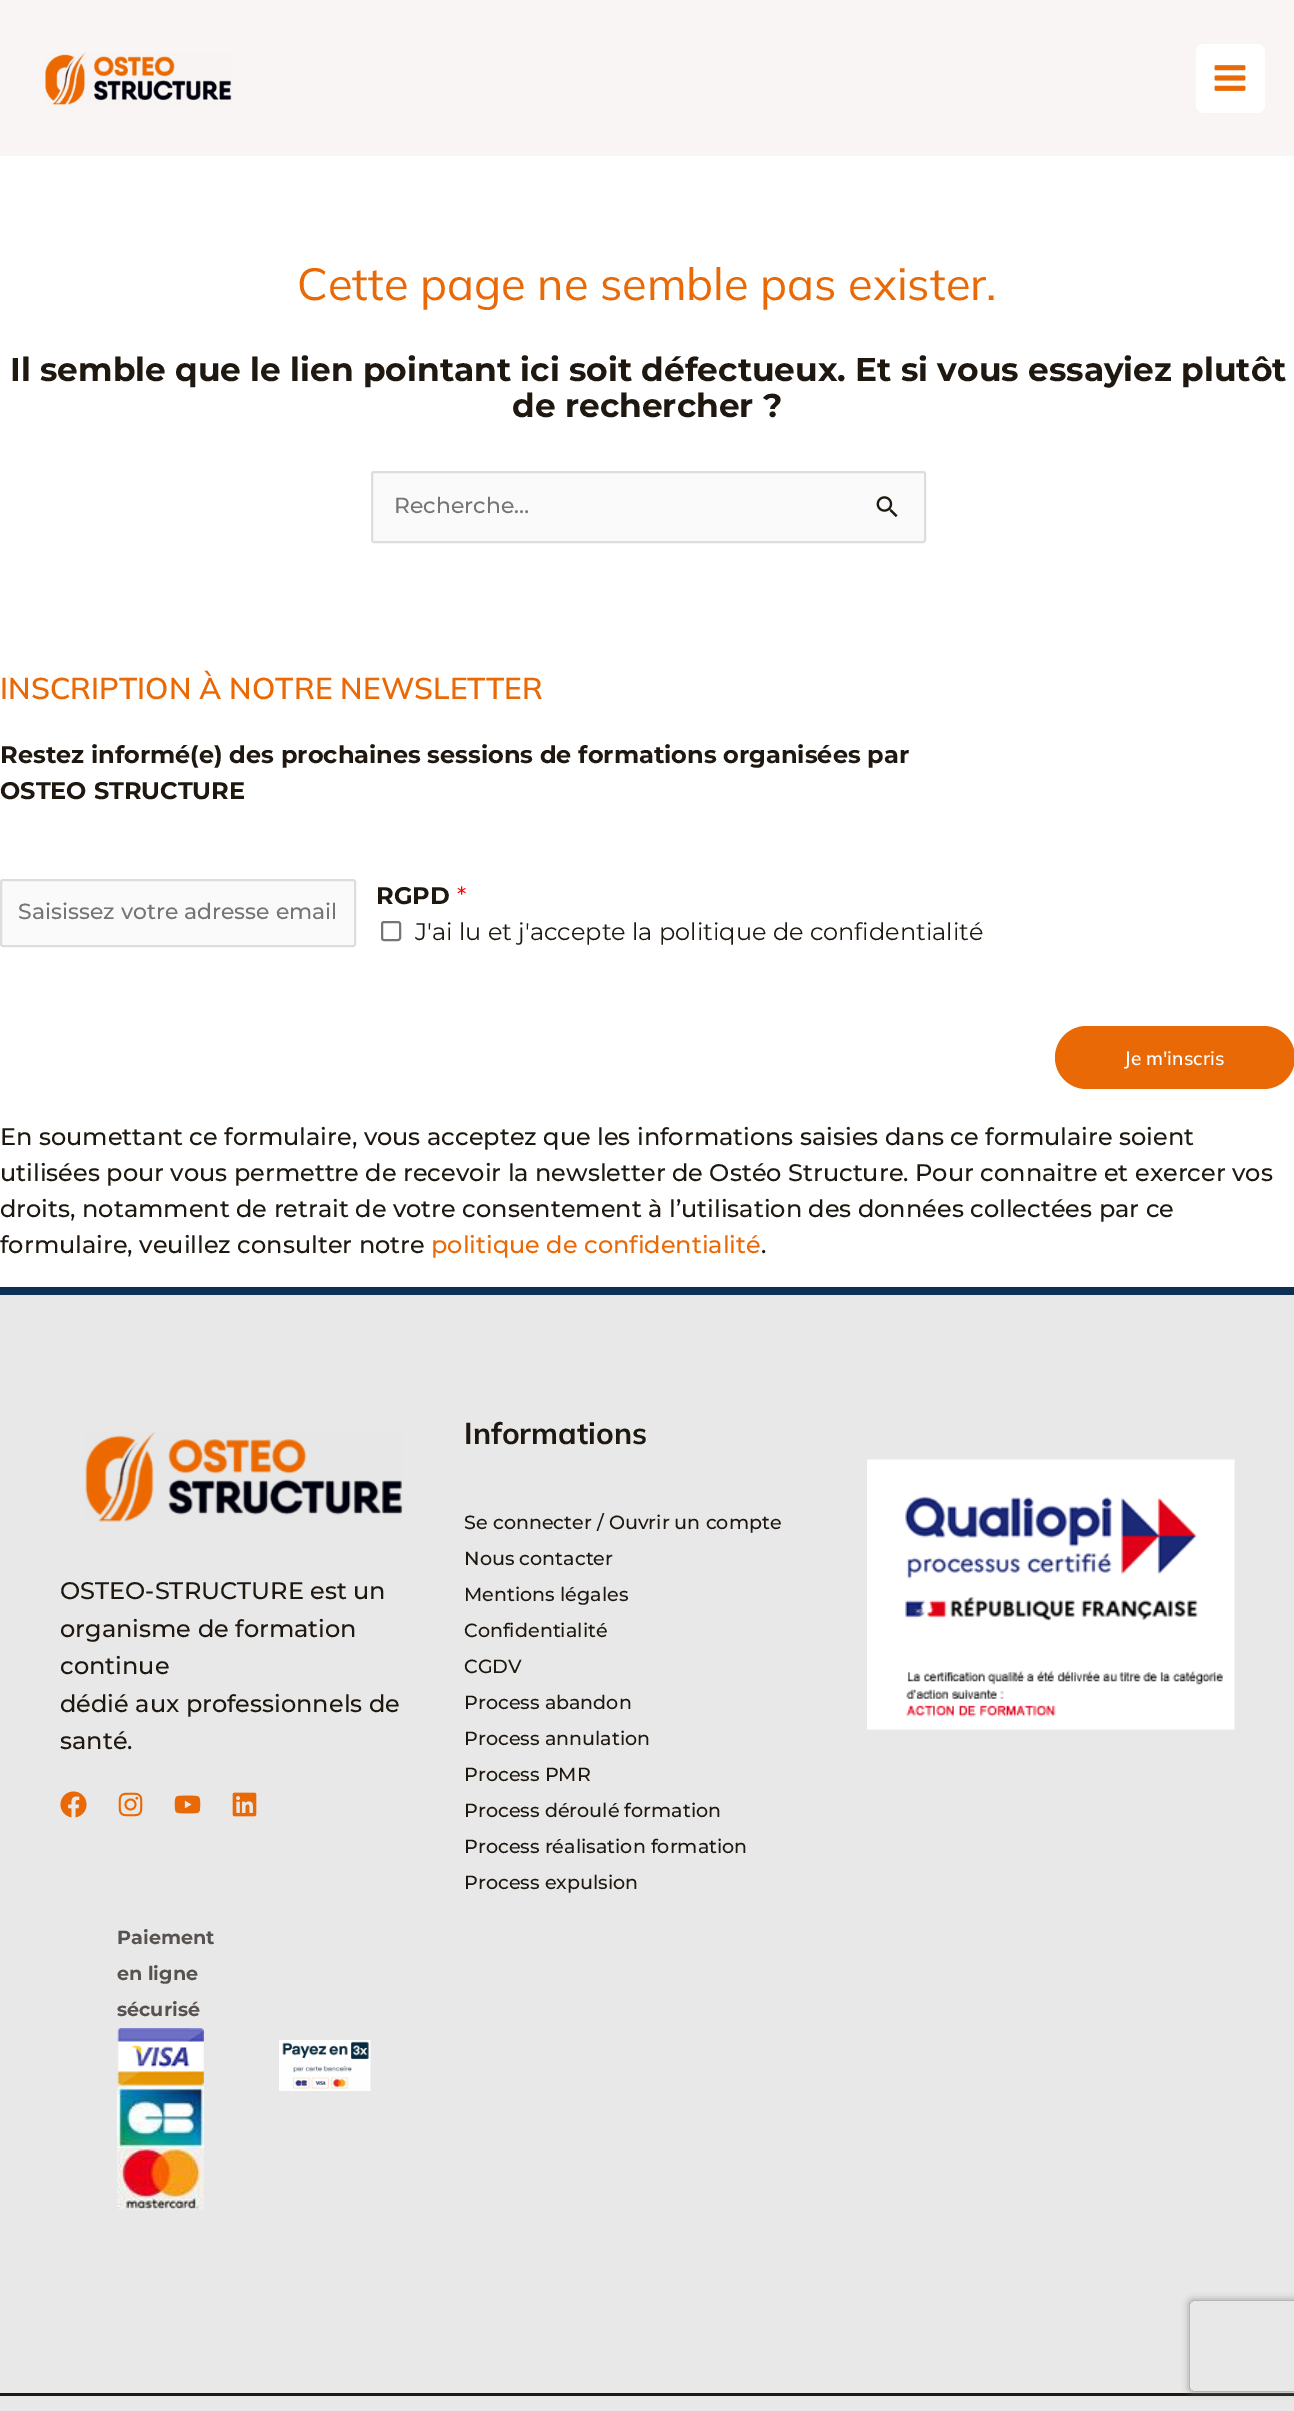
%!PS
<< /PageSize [1294 2411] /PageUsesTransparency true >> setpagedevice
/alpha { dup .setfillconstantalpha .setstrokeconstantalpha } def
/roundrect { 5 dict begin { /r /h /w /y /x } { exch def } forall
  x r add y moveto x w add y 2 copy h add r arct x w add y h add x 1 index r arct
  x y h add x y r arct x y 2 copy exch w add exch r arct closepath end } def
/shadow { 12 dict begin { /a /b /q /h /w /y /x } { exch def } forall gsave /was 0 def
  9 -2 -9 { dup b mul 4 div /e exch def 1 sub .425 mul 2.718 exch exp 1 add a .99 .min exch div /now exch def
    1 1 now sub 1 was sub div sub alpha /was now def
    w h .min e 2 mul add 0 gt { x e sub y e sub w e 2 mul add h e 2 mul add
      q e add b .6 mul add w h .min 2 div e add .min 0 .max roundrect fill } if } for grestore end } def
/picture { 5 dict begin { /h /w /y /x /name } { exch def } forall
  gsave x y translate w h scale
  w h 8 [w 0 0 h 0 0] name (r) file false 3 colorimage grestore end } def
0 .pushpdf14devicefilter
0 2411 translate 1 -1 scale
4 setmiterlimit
1 setgray
0 0 1294 2411 rectfill
0.973 0.961 0.957 setrgbcolor
0 0 1294 156 rectfill
(img1.rgb) 45 52 187 53 picture
1 setgray
1196 44 69 69 8 roundrect fill
(img2.rgb) 1214 65 32 26 picture
/Mulish-Regular [45 0 0 -45 0 0] selectfont
0.918 0.412 0.027 setrgbcolor
297 300 moveto (Cette page ne semble pas exister.) show
/Montserrat-Bold [32.85 0 0 -32.85 0 0] selectfont
0.118 0.094 0.063 setrgbcolor
10 381 moveto (Il semble que le lien pointant ici soit défectueux. Et si vous essayiez plutôt) show
512 417 moveto (de rechercher ?) show
0.98 setgray
372 472 553 70 2 roundrect gsave fill grestore
0.867 setgray
2 setlinewidth
stroke
/Montserrat-Medium [21.9 0 0 -21.9 0 0] selectfont
0.459 setgray
394 513 moveto (Recherche…) show
(img3.rgb) 876 496 22 22 picture
/Mulish-SemiBold [30 0 0 -30 0 0] selectfont
0.918 0.412 0.027 setrgbcolor
0 699 moveto (INSCRIPTION À NOTRE NEWSLETTER) show
/Montserrat-Bold [24 0 0 -24 0 0] selectfont
0.118 0.094 0.063 setrgbcolor
0 763 moveto (Restez informé\(e\) des prochaines sessions de formations organisées par) show
0 799 moveto (OSTEO STRUCTURE) show
0.98 setgray
1 880 354 66 2 roundrect gsave fill grestore
0.867 setgray
stroke
/Montserrat-Medium [21.9 0 0 -21.9 0 0] selectfont
0.459 setgray
18 919 moveto (Saisissez votre adresse email) show
/Montserrat-Bold [24 0 0 -24 0 0] selectfont
0.118 0.094 0.063 setrgbcolor
376 904 moveto (RGPD) show
/Montserrat-Regular [24 0 0 -24 0 0] selectfont
1 0 0 setrgbcolor
457 904 moveto (*) show
0.463 setgray
382 922 18 18 2 roundrect stroke
0.118 0.094 0.063 setrgbcolor
415 940 moveto (J'ai lu et j'accepte la politique de confidentialité) show
0.918 0.412 0.027 setrgbcolor
1055 1026 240 63 31.5 roundrect fill
/Mulish-SemiBold [19.1 0 0 -19.1 0 0] selectfont
1 setgray
1124 1065 moveto (Je m'inscris) show
/Montserrat-Medium [24 0 0 -24 0 0] selectfont
0.118 0.094 0.063 setrgbcolor
0 1145 moveto (En soumettant ce formulaire, vous acceptez que les informations saisies dans ce formulaire soient) show
0 1181 moveto (utilisées pour vous permettre de recevoir la newsletter de Ostéo Structure. Pour connaitre et exercer vos) show
0 1217 moveto (droits, notamment de retrait de votre consentement à l’utilisation des données collectées par ce) show
0 1253 moveto (formulaire, veuillez consulter notre) show
0.918 0.412 0.027 setrgbcolor
431 1253 moveto (politique de confidentialité) show
0.118 0.094 0.063 setrgbcolor
761 1253 moveto (.) show
0.91 setgray
0 1295 1294 1098 rectfill
0.051 0.192 0.333 setrgbcolor
0 1287 1294 8 rectfill
(img4.rgb) 85 1432 318 90 picture
0.118 0.094 0.063 setrgbcolor
60 1599 moveto (OSTEO-STRUCTURE est un) show
60 1637 moveto (organisme de formation) show
60 1674 moveto (continue) show
60 1712 moveto (dédié aux professionnels de) show
60 1749 moveto (santé.) show
(img5.rgb) 60 1791 27 27 picture
(img6.rgb) 118 1792 25 25 picture
(img7.rgb) 174 1795 27 19 picture
(img8.rgb) 232 1792 25 25 picture
/Montserrat-Bold [19.1 0 0 -19.1 0 0] selectfont
0.341 0.322 0.314 setrgbcolor
117 1944 moveto (Paiement) show
117 1980 moveto (en ligne) show
117 2016 moveto (sécurisé) show
(img9.rgb) 117 2028 87 58 picture
(img10.rgb) 117 2086 87 62 picture
(img11.rgb) 117 2148 87 62 picture
(img12.rgb) 279 2040 92 51 picture
/Mulish-Bold [30 0 0 -30 0 0] selectfont
0.118 0.094 0.063 setrgbcolor
464 1444 moveto (Informations) show
/Montserrat-Medium [19.1 0 0 -19.1 0 0] selectfont
464 1529 moveto (Se connecter / Ouvrir un compte) show
464 1565 moveto (Nous contacter) show
464 1601 moveto (Mentions légales) show
464 1637 moveto (Confidentialité) show
464 1673 moveto (CGDV) show
464 1709 moveto (Process abandon) show
464 1745 moveto (Process annulation) show
464 1781 moveto (Process PMR) show
464 1817 moveto (Process déroulé formation) show
464 1853 moveto (Process réalisation formation) show
464 1889 moveto (Process expulsion) show
(img13.rgb) 867 1459 368 271 picture
0.91 setgray
0 2396 1294 15 rectfill
0.118 0.094 0.063 setrgbcolor
0 2393 1294 3 rectfill
gsave
newpath 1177 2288 moveto 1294 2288 lineto 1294 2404 lineto 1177 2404 lineto closepath 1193 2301 moveto 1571 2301 lineto 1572.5 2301 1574 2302.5 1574 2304 curveto 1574 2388 lineto 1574 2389.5 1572.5 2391 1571 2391 curveto 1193 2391 lineto 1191.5 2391 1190 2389.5 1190 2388 curveto 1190 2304 lineto 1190 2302.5 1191.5 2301 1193 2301 curveto closepath eoclip newpath
0.502 setgray
1190 2301 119 90 3 4 1 shadow
grestore
.poppdf14devicefilter showpage
